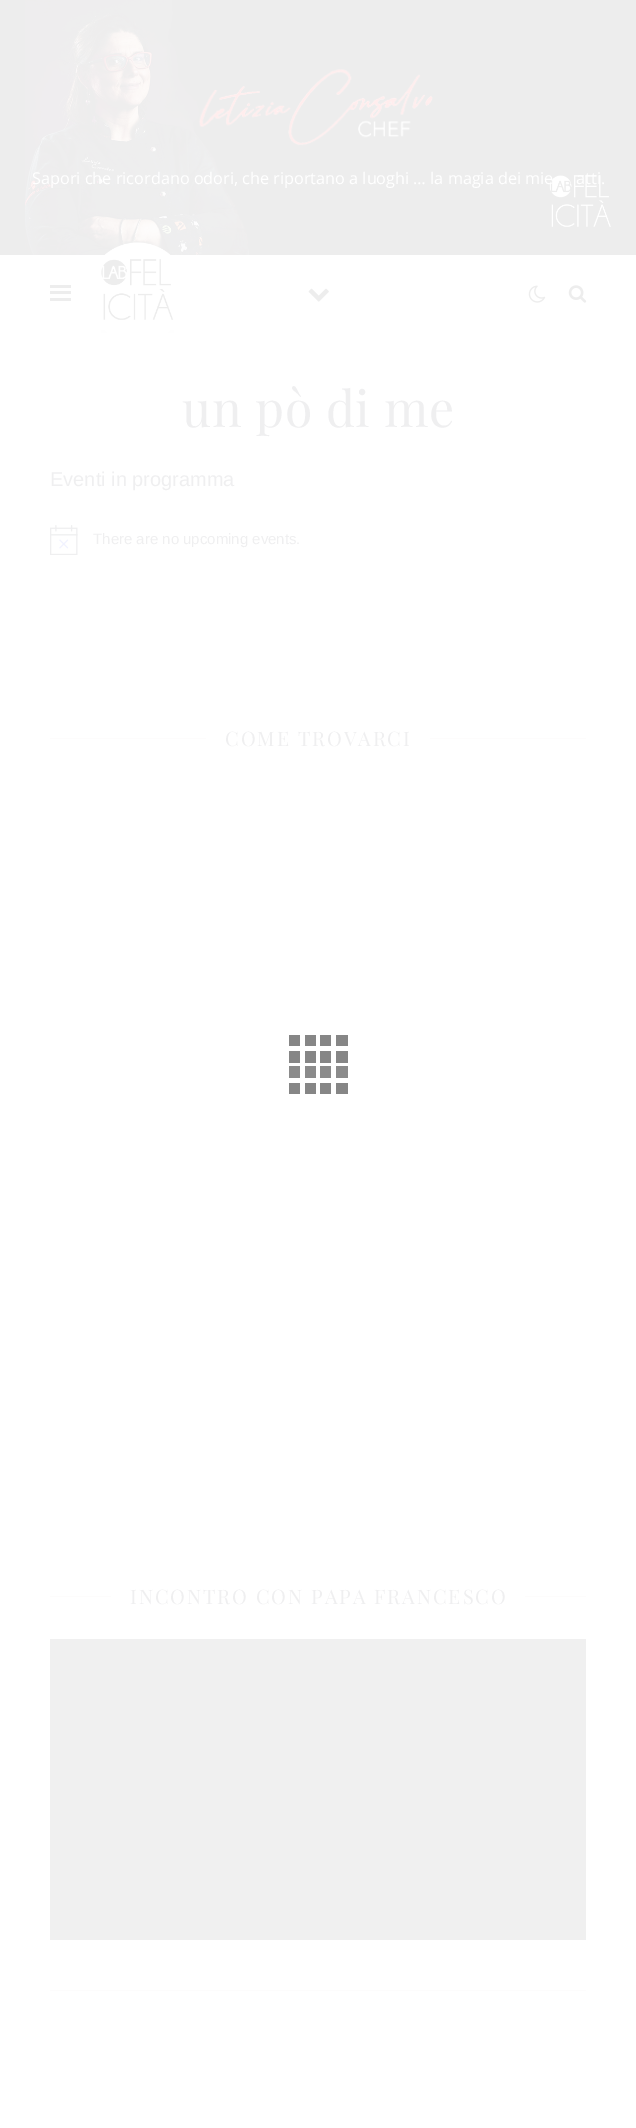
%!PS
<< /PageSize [636 2128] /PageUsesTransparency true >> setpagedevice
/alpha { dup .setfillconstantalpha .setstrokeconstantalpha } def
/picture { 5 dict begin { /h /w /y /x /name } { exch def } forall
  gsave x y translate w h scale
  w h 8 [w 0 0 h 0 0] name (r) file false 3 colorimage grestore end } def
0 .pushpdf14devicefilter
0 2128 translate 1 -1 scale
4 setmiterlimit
1 setgray
0 0 636 2128 rectfill
(img1.rgb) 0 0 636 255 picture
(img2.rgb) 198 69 235 77 picture
/OpenSans-Regular [16.25 0 0 -16.25 0 0] selectfont
32 184 moveto (Sapori che ricordano odori, che riportano a luoghi … la magia dei mie) show
576 184 moveto (atti.) show
0.929 setgray
50 285 21 3 rectfill
50 291 21 3 rectfill
50 298 21 3 rectfill
(img3.rgb) 101 242 73 92 picture
(img4.rgb) 308 288 21 14 picture
(img5.rgb) 528 285 18 18 picture
(img6.rgb) 568 285 19 18 picture
/PlayfairDisplay-Regular [50 0 0 -50 0 0] selectfont
0.937 0.937 0.941 setrgbcolor
182 427 moveto 0.6 0 (un pò di me) ashow
/LiberationSans-Regular [20 0 0 -20 0 0] selectfont
50 486 moveto (Eventi in programma) show
(img7.rgb) 50 525 28 30 picture
/LiberationSans-Regular [15 0 0 -15 0 0] selectfont
93 544 moveto (There are no upcoming events.) show
0.992 0.988 0.988 setrgbcolor
50 1990 536 1 rectfill
50 738 156 1 rectfill
/PlayfairDisplay-Regular [20 0 0 -20 0 0] selectfont
0.937 0.937 0.941 setrgbcolor
225 746 moveto 1.9 0 (COME TROVARCI) ashow
0.992 0.988 0.988 setrgbcolor
430 738 156 1 rectfill
50 1596 61 1 rectfill
0.937 0.937 0.941 setrgbcolor
130 1604 moveto 1.9 0 (INCONTRO CON PAPA FRANCESCO) ashow
0.992 0.988 0.988 setrgbcolor
525 1596 61 1 rectfill
0.941 setgray
50 1639 536 301 rectfill
0.525 setgray
289 1035 11 11 rectfill
305 1035 11 11 rectfill
320 1035 11 11 rectfill
336 1035 12 11 rectfill
289 1051 11 12 rectfill
305 1051 11 12 rectfill
320 1051 11 12 rectfill
336 1051 12 12 rectfill
0.57 alpha
0.2 setgray
289 1066 11 12 rectfill
305 1066 11 12 rectfill
320 1066 11 12 rectfill
336 1066 12 12 rectfill
1 alpha
0.525 setgray
289 1083 11 11 rectfill
305 1083 11 11 rectfill
320 1083 11 11 rectfill
336 1083 12 11 rectfill
.poppdf14devicefilter showpage
